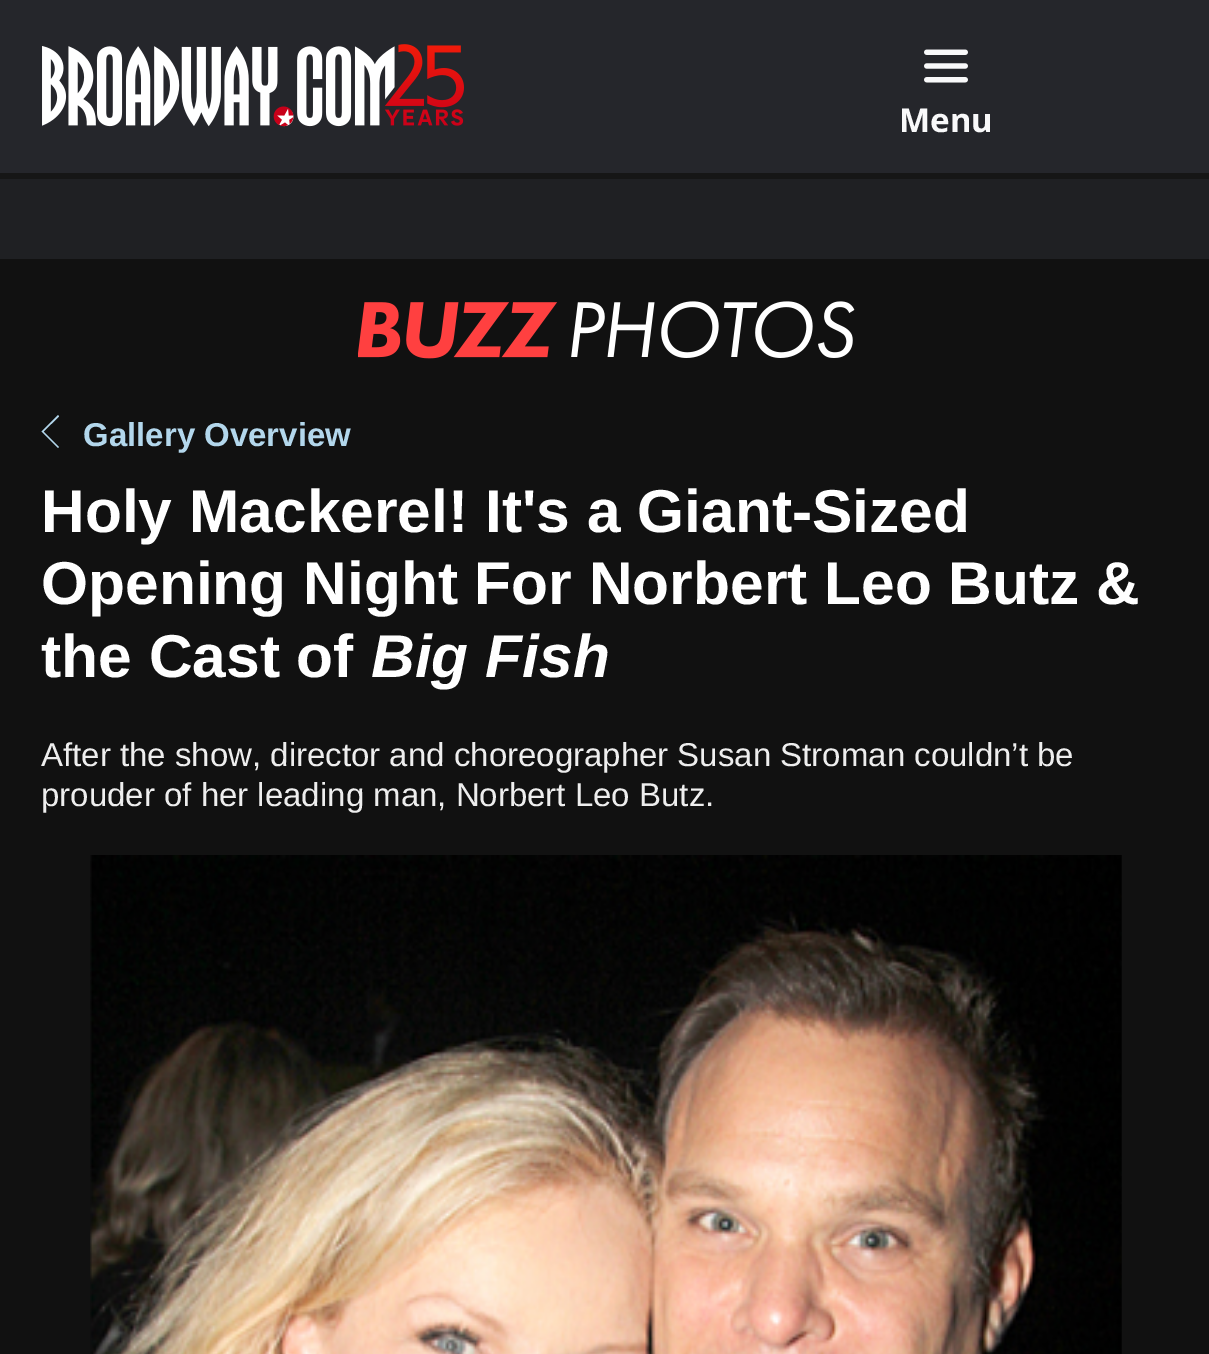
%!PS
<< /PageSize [1209 1354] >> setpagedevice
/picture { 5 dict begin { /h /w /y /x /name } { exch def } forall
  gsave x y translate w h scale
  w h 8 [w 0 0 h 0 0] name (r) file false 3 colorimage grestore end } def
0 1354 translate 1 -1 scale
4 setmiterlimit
0.067 setgray
0 0 1209 1354 rectfill
0.145 0.149 0.169 setrgbcolor
0 0 1209 173 rectfill
(img1.rgb) 42 44 422 83 picture
(img2.rgb) 924 49 44 34 picture
/NotoSans-Bold [33 0 0 -33 0 0] selectfont
0.976 0.976 0.98 setrgbcolor
899 132 moveto (Menu) show
0.122 0.125 0.137 setrgbcolor
0 179 1209 80 rectfill
0.086 setgray
0 173 1209 6 rectfill
(img3.rgb) 358 301 497 58 picture
/LiberationSans-Bold [33 0 0 -33 0 0] selectfont
0.702 0.843 0.925 setrgbcolor
83 446 moveto (Gallery Overview) show
newpath 42.5 430.5 moveto 41.5 431.5 lineto 58 448 lineto 59 447 lineto 43.5 431.5 lineto 59 416.5 lineto 58 415 lineto closepath eofill
/LiberationSans-Bold [60.5 0 0 -60.5 0 0] selectfont
1 setgray
41 532 moveto (Holy Mackerel! It's a Giant-Sized) show
41 604 moveto (Opening Night For Norbert Leo Butz &) show
41 677 moveto (the Cast of) show
/LiberationSans-BoldItalic [60.5 0 0 -60.5 0 0] selectfont
371 677 moveto (Big Fish) show
/LiberationSans-Regular [33 0 0 -33 0 0] selectfont
0.933 setgray
41 766 moveto (After the show, director and choreographer Susan Stroman couldn’t be) show
41 806 moveto (prouder of her leading man, Norbert Leo Butz.) show
(img4.rgb) 90 855 1032 499 picture
showpage
